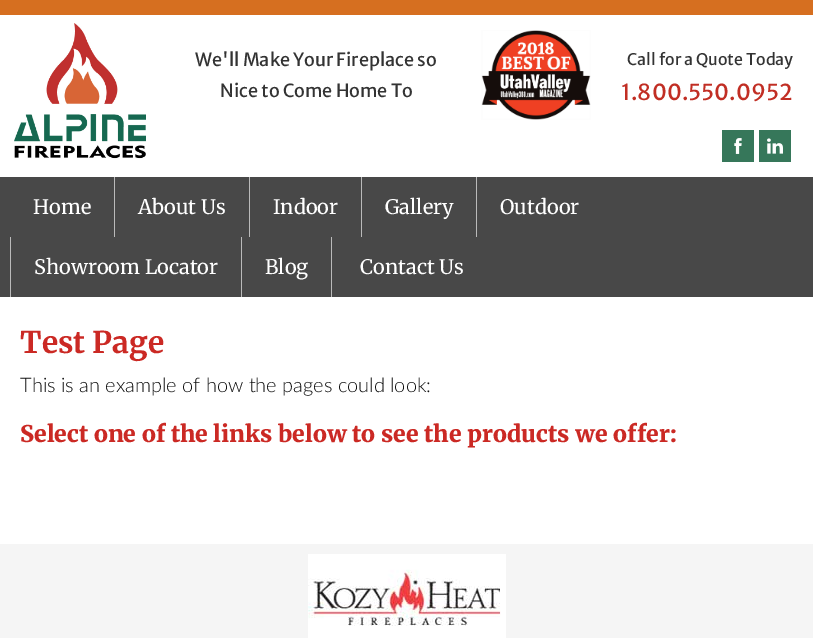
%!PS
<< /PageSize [813 638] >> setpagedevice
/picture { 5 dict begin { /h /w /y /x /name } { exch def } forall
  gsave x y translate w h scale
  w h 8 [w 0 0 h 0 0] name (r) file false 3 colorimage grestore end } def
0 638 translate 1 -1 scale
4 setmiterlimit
1 setgray
0 0 813 638 rectfill
0.839 0.435 0.125 setrgbcolor
0 0 813 15 rectfill
(img1.rgb) 14 23 132 136 picture
/MerriweatherSans-Regular [18 0 0 -18 0 0] selectfont
0.2 setgray
195 66 moveto (We'll Make Your Fireplace so) show
220 97 moveto (Nice to Come Home To) show
(img2.rgb) 481 30 110 90 picture
/MerriweatherSans-Regular [16 0 0 -16 0 0] selectfont
627 65 moveto (Call for a Quote Today) show
/MerriweatherSans-Regular [22 0 0 -22 0 0] selectfont
0.757 0.18 0.141 setrgbcolor
621 100 moveto (1.800.550.0952) show
(img3.rgb) 722 130 32 32 picture
(img4.rgb) 759 130 32 32 picture
0.282 setgray
0 177 813 120 rectfill
/Merriweather-Regular [20 0 0 -20 0 0] selectfont
1 setgray
33 214 moveto (Home) show
0.729 setgray
114 177 1 60 rectfill
1 setgray
138 214 moveto (About Us) show
0.729 setgray
249 177 1 60 rectfill
1 setgray
273 214 moveto (Indoor) show
0.729 setgray
361 177 1 60 rectfill
1 setgray
385 214 moveto (Gallery) show
0.729 setgray
476 177 1 60 rectfill
1 setgray
500 214 moveto (Outdoor) show
0.729 setgray
10 237 1 60 rectfill
1 setgray
34 274 moveto (Showroom Locator) show
0.729 setgray
241 237 1 60 rectfill
1 setgray
265 274 moveto (Blog) show
0.729 setgray
331 237 1 60 rectfill
1 setgray
360 274 moveto (Contact Us) show
/Merriweather-Bold [30 0 0 -30 0 0] selectfont
0.796 0.161 0.141 setrgbcolor
20 353 moveto (Test Page) show
/Lato-Light [20 0 0 -20 0 0] selectfont
0.067 setgray
20 392 moveto (This is an example of how the pages could look:) show
/Merriweather-Black [23 0 0 -23 0 0] selectfont
0.796 0.161 0.141 setrgbcolor
20 442 moveto (Select one of the links below to see the products we offer:) show
0.961 setgray
0 544 813 94 rectfill
(img5.rgb) 308 554 198 84 picture
showpage
